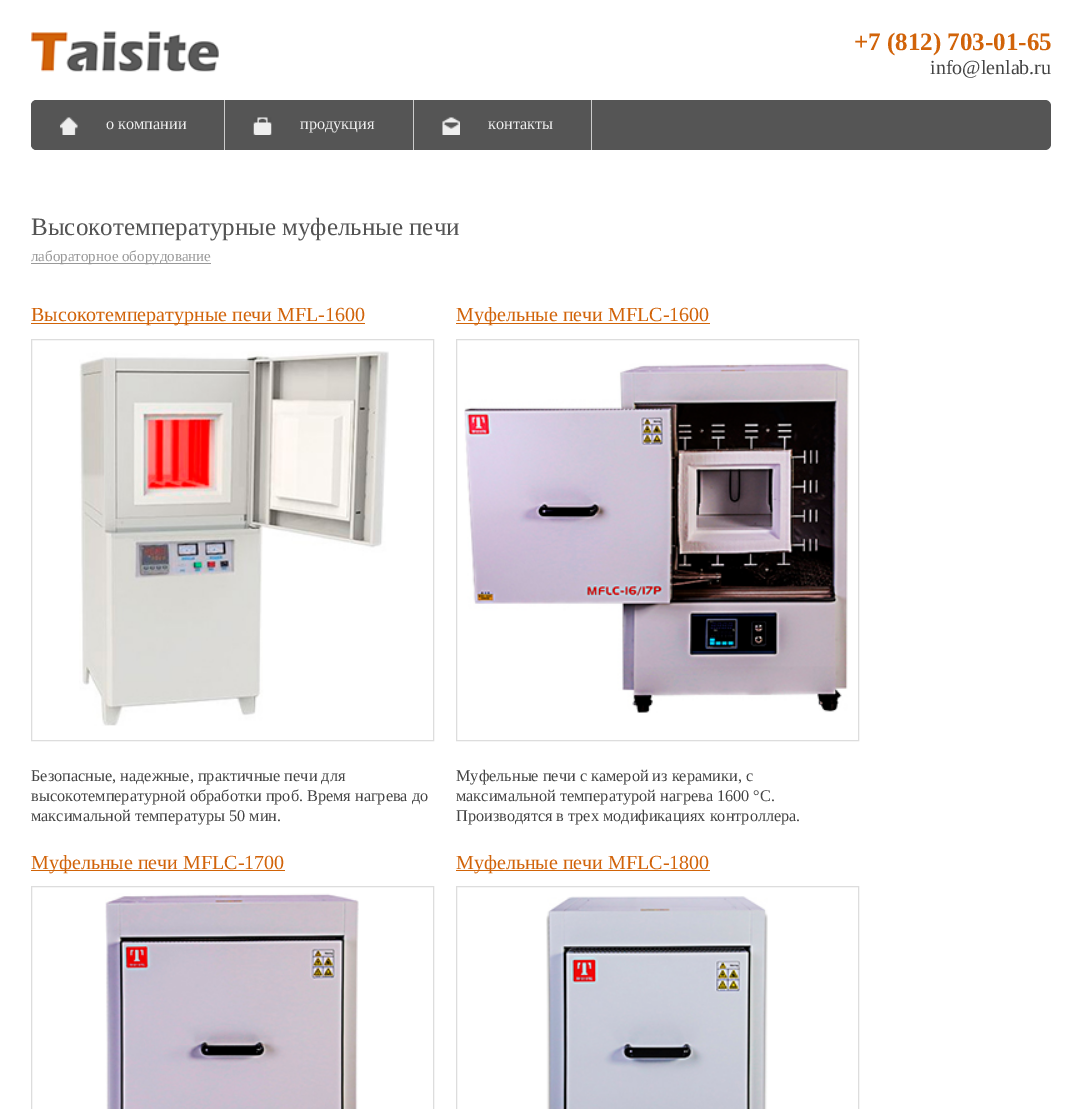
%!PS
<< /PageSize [1082 1109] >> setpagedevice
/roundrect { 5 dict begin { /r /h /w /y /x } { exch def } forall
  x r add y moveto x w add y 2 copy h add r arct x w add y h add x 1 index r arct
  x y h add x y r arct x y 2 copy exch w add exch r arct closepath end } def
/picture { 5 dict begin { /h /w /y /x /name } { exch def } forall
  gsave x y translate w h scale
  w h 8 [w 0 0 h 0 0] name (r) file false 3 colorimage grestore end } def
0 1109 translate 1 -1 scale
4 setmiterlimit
1 setgray
0 0 1082 1109 rectfill
(img1.rgb) 31 31 188 41 picture
/LiberationSerif-Bold [25 0 0 -25 0 0] selectfont
0.82 0.388 0.035 setrgbcolor
854 50 moveto (+7 \(812\) 703-01-65) show
/LiberationSerif-Regular [20 0 0 -20 0 0] selectfont
0.267 setgray
930 74 moveto (info@lenlab.ru) show
0.333 setgray
31 100 1020 50 6 roundrect fill
0.8 setgray
224 100 1 50 rectfill
0.333 setgray
newpath 37 100 moveto 224 100 lineto 224 150 lineto 37 150 lineto 33.5 150 31 147.5 31 144 curveto 31 106 lineto 31 102.5 33.5 100 37 100 curveto closepath fill
(img2.rgb) 60 117 18 18 picture
/LiberationSerif-Regular [16.25 0 0 -16.25 0 0] selectfont
0.933 setgray
106 129 moveto (о компании) show
0.8 setgray
413 100 1 50 rectfill
(img3.rgb) 253 117 19 18 picture
0.933 setgray
300 129 moveto (продукция) show
0.8 setgray
591 100 1 50 rectfill
(img4.rgb) 442 117 18 18 picture
0.933 setgray
488 129 moveto (контакты) show
/LiberationSerif-Regular [25 0 0 -25 0 0] selectfont
0.329 setgray
31 235 moveto (Высокотемпературные муфельные печи) show
0.6 setgray
31 263 180 1 rectfill
/LiberationSerif-Regular [15 0 0 -15 0 0] selectfont
31 261 moveto (лабораторное оборудование) show
0.82 0.388 0.027 setrgbcolor
31 323 334 1 rectfill
/LiberationSerif-Regular [20 0 0 -20 0 0] selectfont
0.82 0.388 0.035 setrgbcolor
31 321 moveto (Высокотемпературные печи MFL-1600) show
0.867 setgray
31.5 339.5 402 401 rectstroke
(img5.rgb) 79 351 310 375 picture
/LiberationSerif-Regular [16.25 0 0 -16.25 0 0] selectfont
0.267 setgray
31 781 moveto (Безопасные, надежные, практичные печи для) show
31 801 moveto (высокотемпературной обработки проб. Время нагрева до) show
31 821 moveto (максимальной температуры 50 мин.) show
0.82 0.388 0.027 setrgbcolor
456 323 254 1 rectfill
/LiberationSerif-Regular [20 0 0 -20 0 0] selectfont
0.82 0.388 0.035 setrgbcolor
456 321 moveto (Муфельные печи MFLC-1600) show
0.867 setgray
456.5 339.5 402 401 rectstroke
(img6.rgb) 464 363 385 350 picture
/LiberationSerif-Regular [16.25 0 0 -16.25 0 0] selectfont
0.267 setgray
456 781 moveto (Муфельные печи с камерой из керамики, с) show
456 801 moveto (максимальной температурой нагрева 1600 °C.) show
456 821 moveto (Производятся в трех модификациях контроллера.) show
0.82 0.388 0.027 setrgbcolor
31 870 254 1 rectfill
/LiberationSerif-Regular [20 0 0 -20 0 0] selectfont
0.82 0.388 0.035 setrgbcolor
31 869 moveto (Муфельные печи MFLC-1700) show
0.867 setgray
31.5 886.5 402 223 rectstroke
(img7.rgb) 105 893 254 216 picture
0.82 0.388 0.027 setrgbcolor
456 870 254 1 rectfill
0.82 0.388 0.035 setrgbcolor
456 869 moveto (Муфельные печи MFLC-1800) show
0.867 setgray
456.5 886.5 402 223 rectstroke
(img8.rgb) 546 896 222 213 picture
showpage
